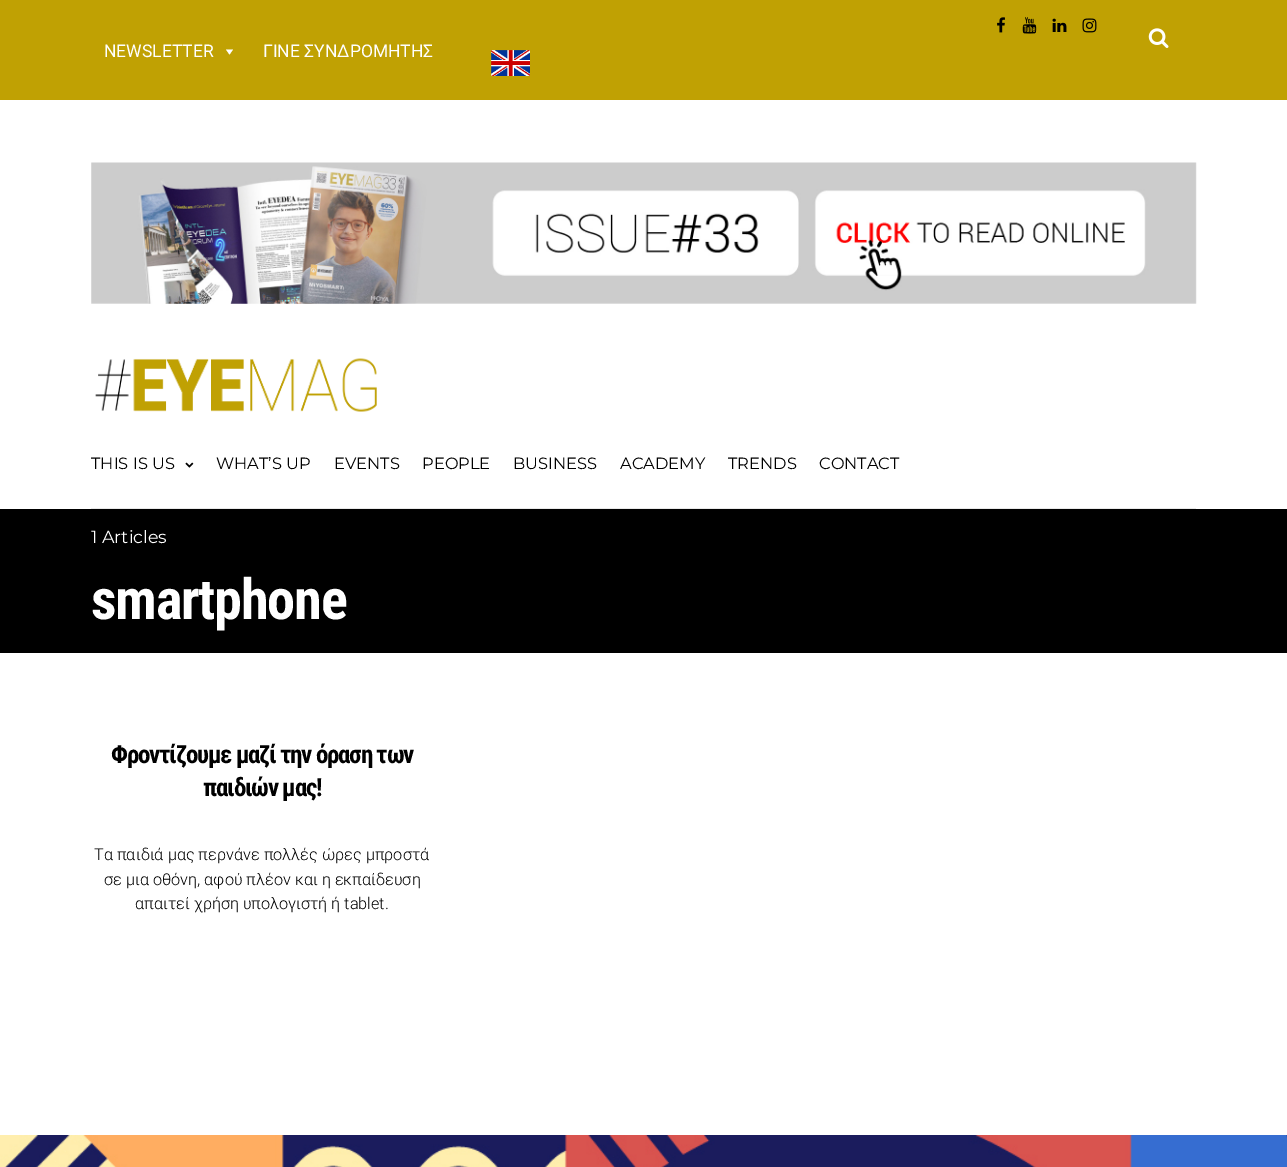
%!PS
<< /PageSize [1287 1167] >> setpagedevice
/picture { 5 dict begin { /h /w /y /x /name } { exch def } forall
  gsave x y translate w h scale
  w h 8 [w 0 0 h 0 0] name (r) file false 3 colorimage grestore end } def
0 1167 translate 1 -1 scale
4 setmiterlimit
1 setgray
0 0 1287 1167 rectfill
0.753 0.631 0.012 setrgbcolor
0 0 1287 100 rectfill
(img1.rgb) 997 17 8 16 picture
(img2.rgb) 1022 17 15 17 picture
(img3.rgb) 1052 18 15 14 picture
(img4.rgb) 1082 18 15 15 picture
(img5.rgb) 1148 28 21 20 picture
/Roboto-Regular [17.5 0 0 -17.5 0 0] selectfont
1 setgray
104 57 moveto (NEWSLETTER) show
newpath 233 49.5 moveto 229.5 54.5 lineto 226 49.5 lineto closepath fill
263 57 moveto (ΓΙΝΕ ΣΥΝΔΡΟΜΗΤΗΣ) show
(img6.rgb) 491 50 39 26 picture
(img7.rgb) 91 162 1106 142 picture
(img8.rgb) 95 358 282 54 picture
0.91 setgray
91 508 1105 1 rectfill
/Montserrat-Regular [16.25 0 0 -16.25 0 0] selectfont
0 setgray
91 469 moveto (THIS IS US) show
(img9.rgb) 185 462 9 6 picture
216 469 moveto (WHAT’S UP) show
334 469 moveto (EVENTS) show
422 469 moveto (PEOPLE) show
513 469 moveto (BUSINESS) show
620 469 moveto (ACADEMY) show
728 469 moveto (TRENDS) show
819 469 moveto (CONTACT) show
0 509 1287 144 rectfill
/Montserrat-Regular [17.5 0 0 -17.5 0 0] selectfont
1 setgray
91 543 moveto (1 Articles) show
/RobotoCondensed-Bold [56.25 0 0 -56.25 0 0] selectfont
91 619 moveto -1.25 0 (smartphone) ashow
/RobotoCondensed-Bold [25 0 0 -25 0 0] selectfont
0 setgray
111 763 moveto -1.25 0 (Φροντίζουμε μαζί την όραση των) ashow
203 796 moveto -1.25 0 (παιδιών μας!) ashow
/Roboto-Light [16.25 0 0 -16.25 0 0] selectfont
94 860 moveto (Τα παιδιά μας περνάνε πολλές ώρες μπροστά) show
104 885 moveto (σε μια οθόνη, αφού πλέον και η εκπαίδευση) show
135 909 moveto (απαιτεί χρήση υπολογιστή ή tablet.) show
(img10.rgb) 0 1135 1287 32 picture
showpage
